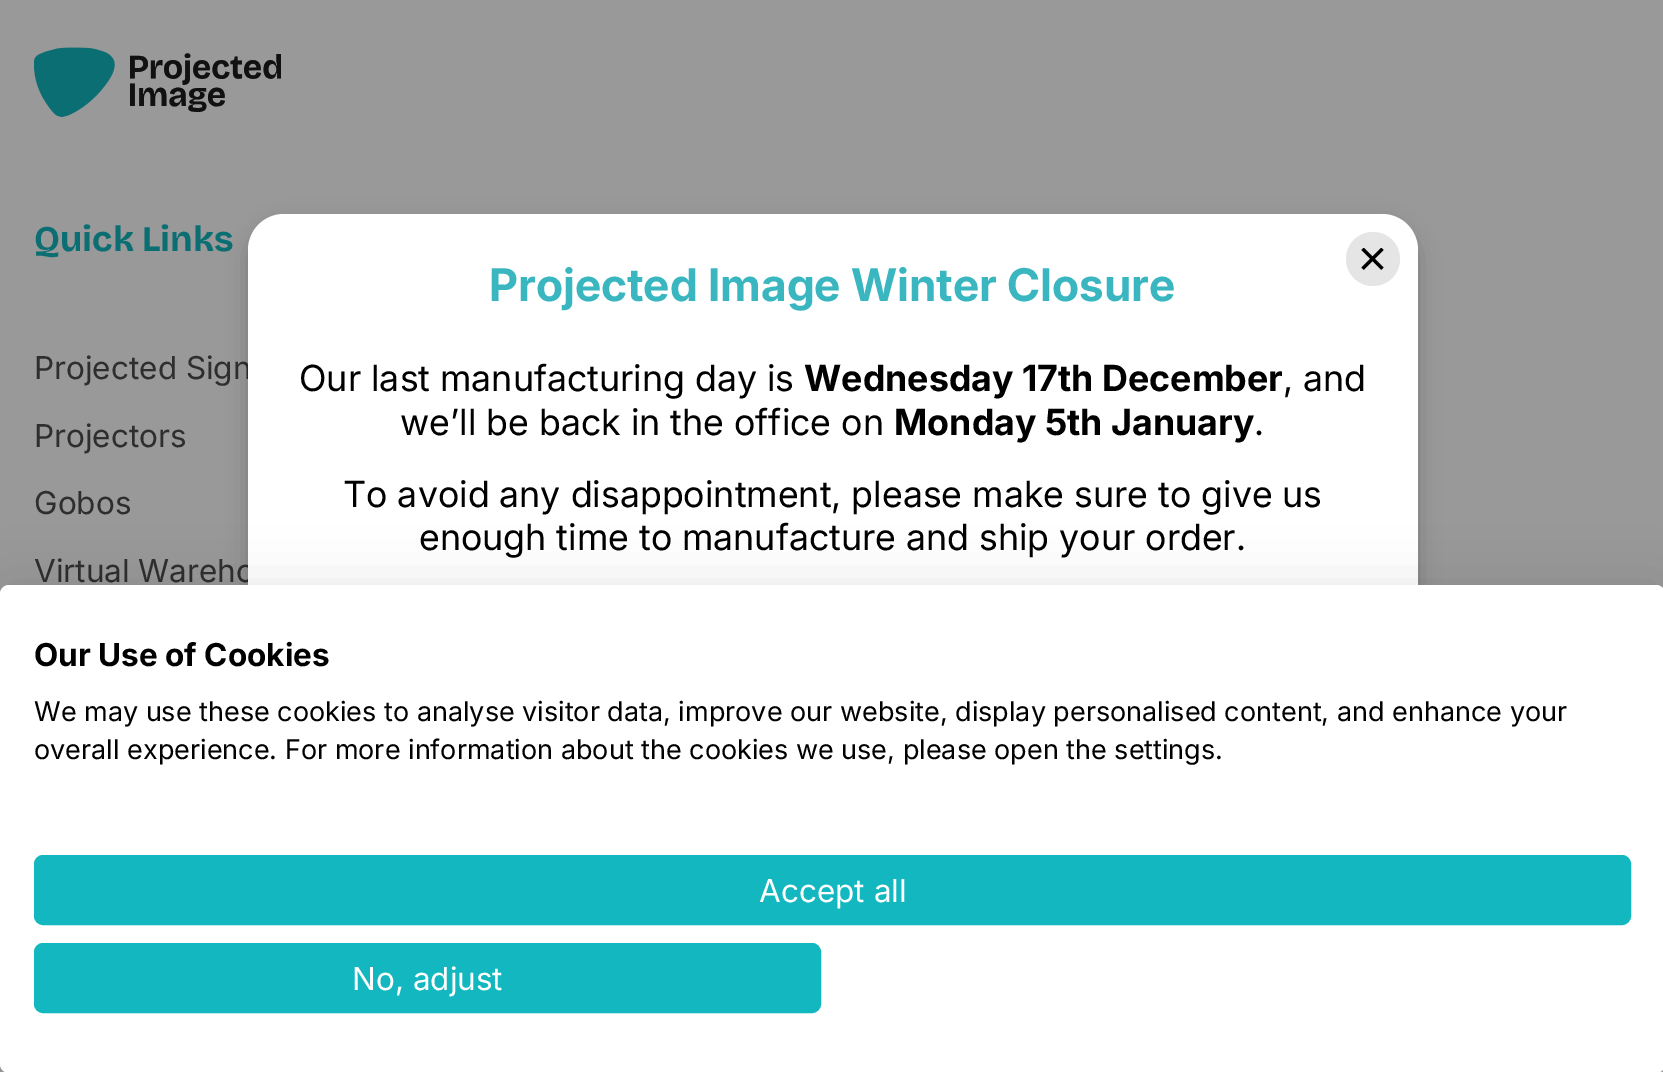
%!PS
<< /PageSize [1663 1072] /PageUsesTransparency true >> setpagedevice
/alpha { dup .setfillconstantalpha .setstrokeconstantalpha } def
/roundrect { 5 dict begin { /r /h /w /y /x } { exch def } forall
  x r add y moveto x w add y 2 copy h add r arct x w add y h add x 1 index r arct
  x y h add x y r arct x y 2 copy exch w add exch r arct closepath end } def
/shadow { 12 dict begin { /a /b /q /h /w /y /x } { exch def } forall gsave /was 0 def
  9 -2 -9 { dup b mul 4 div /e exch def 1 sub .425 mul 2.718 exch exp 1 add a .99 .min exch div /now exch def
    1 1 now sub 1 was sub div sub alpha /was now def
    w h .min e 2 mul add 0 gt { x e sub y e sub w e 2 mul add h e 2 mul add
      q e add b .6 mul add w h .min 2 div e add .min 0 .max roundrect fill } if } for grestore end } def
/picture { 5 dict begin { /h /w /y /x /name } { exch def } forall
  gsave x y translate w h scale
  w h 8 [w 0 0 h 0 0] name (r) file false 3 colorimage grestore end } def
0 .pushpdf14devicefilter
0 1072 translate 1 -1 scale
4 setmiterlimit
0.6 setgray
0 0 1663 1072 rectfill
(img1.rgb) 34 47 247 70 picture
/BricolageGrotesque-Bold [36 0 0 -36 0 0] selectfont
0.043 0.431 0.451 setrgbcolor
34 251 moveto (Quick Links) show
/Inter-Regular [31.5 0 0 -31.5 0 0] selectfont
0.18 setgray
34 379 moveto (Projected Sign) show
34 447 moveto (Projectors) show
34 514 moveto (Gobos) show
34 582 moveto (Virtual Wareho) show
0 setgray
248 223 1170 646 36 11 0.2 shadow
1 setgray
248 214 1170 646 36 roundrect fill
0.898 setgray
newpath 1373 259 27 0 360 arc closepath fill
(img2.rgb) 1361 248 23 22 picture
/Inter-Bold [45 0 0 -45 0 0] selectfont
0.224 0.714 0.749 setrgbcolor
489 301 moveto (Projected Image Winter Closure) show
/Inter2-Regular [36 0 0 -36 0 0] selectfont
0 setgray
299 391 moveto (Our last manufacturing day is) show
/Inter2-Bold [36 0 0 -36 0 0] selectfont
804 391 moveto (Wednesday 17th December) show
/Inter2-Regular [36 0 0 -36 0 0] selectfont
1283 391 moveto (, and) show
400 435 moveto (we’ll be back in the office on) show
/Inter2-Bold [36 0 0 -36 0 0] selectfont
894 435 moveto (Monday 5th January) show
/Inter2-Regular [36 0 0 -36 0 0] selectfont
1254 435 moveto (.) show
343 507 moveto (To avoid any disappointment, please make sure to give us) show
419 550 moveto (enough time to manufacture and ship your order.) show
0 585 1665 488 9 27 0.1 shadow
1 setgray
0 585 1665 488 9 roundrect fill
/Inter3-Bold [31.5 0 0 -31.5 0 0] selectfont
0 setgray
34 666 moveto (Our Use of Cookies) show
/Inter-Regular [27 0 0 -27 0 0] selectfont
34 721 moveto (We may use these cookies to analyse visitor data, improve our website, display personalised content, and enhance your) show
34 759 moveto (overall experience. For more information about the cookies we use, please open the settings.) show
0.075 0.718 0.753 setrgbcolor
35 856 1595 68 8 roundrect gsave fill grestore
2 setlinewidth
stroke
/Inter-Regular [31.5 0 0 -31.5 0 0] selectfont
1 setgray
759 902 moveto (Accept all) show
0.075 0.718 0.753 setrgbcolor
35 944 785 68 8 roundrect gsave fill grestore
stroke
1 setgray
352 990 moveto (No, adjust) show
.poppdf14devicefilter showpage
